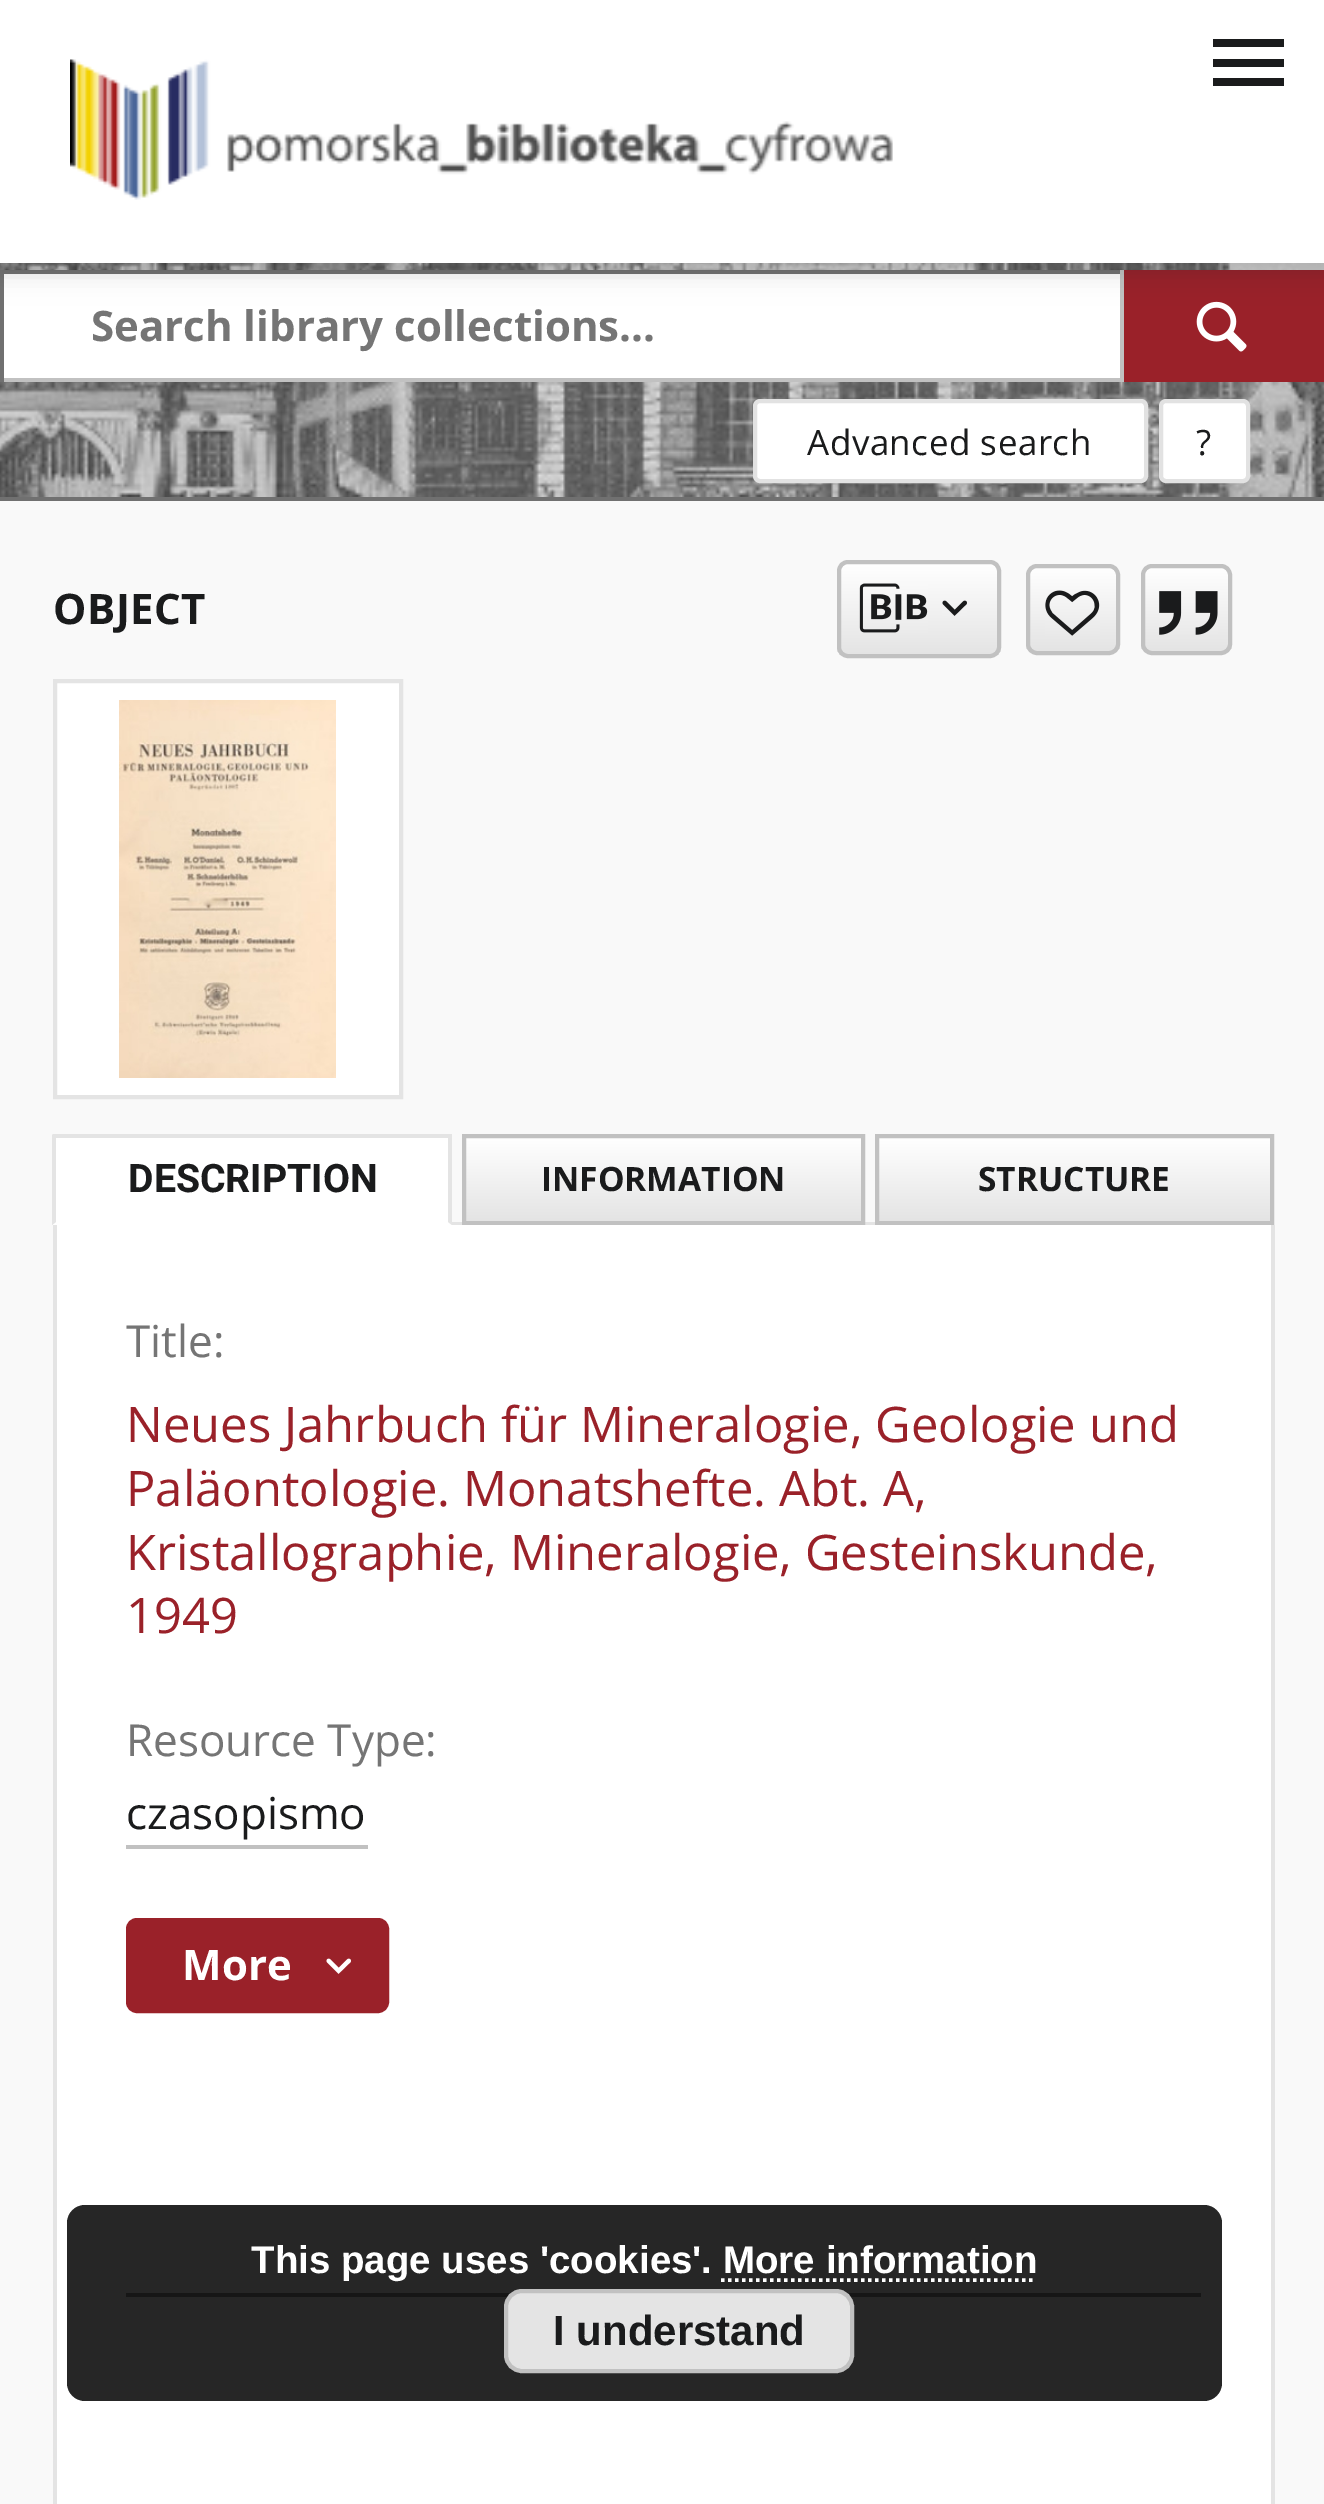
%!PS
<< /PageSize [1324 2504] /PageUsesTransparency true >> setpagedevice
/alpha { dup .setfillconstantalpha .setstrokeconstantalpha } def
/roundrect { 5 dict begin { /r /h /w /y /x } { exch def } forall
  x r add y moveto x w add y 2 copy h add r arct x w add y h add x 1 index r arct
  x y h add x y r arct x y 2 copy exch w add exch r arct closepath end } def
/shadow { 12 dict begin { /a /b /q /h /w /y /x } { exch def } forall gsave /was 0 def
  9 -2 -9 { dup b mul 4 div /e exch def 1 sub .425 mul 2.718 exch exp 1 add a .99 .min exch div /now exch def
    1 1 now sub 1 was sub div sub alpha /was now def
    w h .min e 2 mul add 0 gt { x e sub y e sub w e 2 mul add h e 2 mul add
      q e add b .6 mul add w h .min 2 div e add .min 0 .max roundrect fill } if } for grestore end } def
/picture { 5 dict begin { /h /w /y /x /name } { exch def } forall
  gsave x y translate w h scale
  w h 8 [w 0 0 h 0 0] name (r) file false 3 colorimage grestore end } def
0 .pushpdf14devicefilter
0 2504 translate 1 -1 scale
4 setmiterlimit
0.976 setgray
0 0 1324 2504 rectfill
(img2.rgb) 0 263 1324 234 picture
1 setgray
4 274 1116 104 rectfill
0.439 setgray
0 270 1124 4 rectfill
0.757 setgray
1120 270 4 112 rectfill
0 378 1124 4 rectfill
0.439 setgray
0 270 4 112 rectfill
0.604 0.129 0.161 setrgbcolor
1124 270 200 112 rectfill
(img3.rgb) 1196 301 51 51 picture
0 setgray
0 4 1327 262 0 17.5 0.08 shadow
0 14 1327 263 0 9 0.06 shadow
4 11 1319 255 0 7 0.06 shadow
1 setgray
0 0 1324 263 rectfill
(img1.rgb) 70 59 823 141 picture
0.102 0.106 0.11 setrgbcolor
newpath 1284 47 moveto 1213 47 lineto 1213 39 lineto 1284 39 lineto closepath 1284 59 moveto 1213 59 lineto 1213 67 lineto 1284 67 lineto closepath 1284 78 moveto 1213 78 lineto 1213 86 lineto 1284 86 lineto closepath fill
0.439 setgray
0 497 1324 4 rectfill
/OpenSans-Bold [42 0 0 -42 0 0] selectfont
0.459 setgray
91 341 moveto (Search library collections...) show
1 setgray
755 401 391 80 5 roundrect gsave fill grestore
0.886 setgray
4 setlinewidth
stroke
/OpenSans-Regular [35 0 0 -35 0 0] selectfont
0.102 0.106 0.11 setrgbcolor
807 455 moveto 0.5 0 (Advanced search) ashow
1 setgray
1161 401 87 80 5 roundrect gsave fill grestore
0.886 setgray
stroke
0.102 0.106 0.11 setrgbcolor
1196 455 moveto (?) show
/OpenSans-Bold [42 0 0 -42 0 0] selectfont
53 624 moveto 0.5 0 (OBJECT) ashow
gsave
837 560 164 98 11 roundrect clip newpath
gsave newpath 837 564 moveto 1001 564 lineto 1001 655 lineto 837 655 lineto closepath clip newpath
<< /ShadingType 2 /ColorSpace /DeviceRGB /Coords [919 564 919 655] /Extend [true true] /Function << /FunctionType 2 /Domain [0 1] /C0 [1 1 1] /C1 [0.894 0.894 0.894] /N 1 >> >> shfill grestore
grestore
0.757 setgray
839 562 160 94 9 roundrect stroke
(img4.rgb) 859 583 69 50 picture
(img5.rgb) 942 600 25 16 picture
gsave
1026 564 94 91 11 roundrect clip newpath
gsave newpath 1026 567 moveto 1120 567 lineto 1120 651 lineto 1026 651 lineto closepath clip newpath
<< /ShadingType 2 /ColorSpace /DeviceRGB /Coords [1073 567 1073 651] /Extend [true true] /Function << /FunctionType 2 /Domain [0 1] /C0 [1 1 1] /C1 [0.894 0.894 0.894] /N 1 >> >> shfill grestore
grestore
1028 566 90 87 9 roundrect stroke
(img6.rgb) 1045 590 55 46 picture
gsave
1141 564 91 91 11 roundrect clip newpath
gsave newpath 1141 567 moveto 1232 567 lineto 1232 651 lineto 1141 651 lineto closepath clip newpath
<< /ShadingType 2 /ColorSpace /DeviceRGB /Coords [1187 567 1187 651] /Extend [true true] /Function << /FunctionType 2 /Domain [0 1] /C0 [1 1 1] /C1 [0.894 0.894 0.894] /N 1 >> >> shfill grestore
grestore
1143 566 87 87 9 roundrect stroke
(img7.rgb) 1159 591 59 44 picture
1 setgray
newpath 55 681 moveto 401 681 lineto 401 1097 lineto 55 1097 lineto closepath gsave fill grestore
0.894 setgray
stroke
(img8.rgb) 119 700 217 378 picture
452 1222 423 3 rectfill
1 setgray
53 1138 399 87 rectfill
0.894 setgray
53 1134 399 4 rectfill
newpath 452 1134 moveto 452 1225 lineto 448 1222 lineto 448 1138 lineto closepath fill
newpath 52 1225 moveto 52 1134 lineto 56 1138 lineto 56 1222 lineto closepath fill
/Roboto-Bold [39.25 0 0 -39.25 0 0] selectfont
0.102 0.106 0.11 setrgbcolor
128 1192 moveto (DESCRIPTION) show
gsave newpath 466 1138 moveto 861 1138 lineto 861 1221 lineto 466 1221 lineto closepath clip newpath
<< /ShadingType 2 /ColorSpace /DeviceRGB /Coords [663 1138 663 1222] /Extend [true true] /Function << /FunctionType 2 /Domain [0 1] /C0 [1 1 1] /C1 [0.894 0.894 0.894] /N 1 >> >> shfill grestore
0.757 setgray
464 1136 399 87 rectstroke
/OpenSans-Bold [33.5 0 0 -33.5 0 0] selectfont
0.102 0.106 0.11 setrgbcolor
541 1191 moveto (INFORMATION) show
gsave newpath 879 1138 moveto 1270 1138 lineto 1270 1221 lineto 879 1221 lineto closepath clip newpath
<< /ShadingType 2 /ColorSpace /DeviceRGB /Coords [1075 1138 1075 1222] /Extend [true true] /Function << /FunctionType 2 /Domain [0 1] /C0 [1 1 1] /C1 [0.894 0.894 0.894] /N 1 >> >> shfill grestore
0.757 setgray
877 1136 395 87 rectstroke
0.102 0.106 0.11 setrgbcolor
978 1191 moveto (STRUCTURE) show
1 setgray
57 1225 1214 1279 rectfill
0.894 setgray
1271 1225 4 1279 rectfill
53 1225 4 1279 rectfill
/OpenSans-Regular [44 0 0 -44 0 0] selectfont
0.459 setgray
126 1357 moveto (Title:) show
/OpenSans-Regular [49 0 0 -49 0 0] selectfont
0.604 0.129 0.161 setrgbcolor
126 1442 moveto (Neues Jahrbuch für Mineralogie, Geologie und) show
126 1506 moveto (Paläontologie. Monatshefte. Abt. A,) show
126 1570 moveto (Kristallographie, Mineralogie, Gesteinskunde,) show
126 1633 moveto (1949) show
/OpenSans-Regular [44 0 0 -44 0 0] selectfont
0.459 setgray
126 1756 moveto (Resource Type:) show
0.102 0.106 0.11 setrgbcolor
126 1829 moveto (czasopismo) show
0.757 setgray
126 1845 242 4 rectfill
0.604 0.129 0.161 setrgbcolor
128 1920 259 91 9 roundrect gsave fill grestore
stroke
/OpenSans-Bold [42 0 0 -42 0 0] selectfont
1 setgray
182 1980 moveto (More) show
(img9.rgb) 326 1958 25 16 picture
0.576 setgray
126 2293 1075 4 rectfill
0.85 alpha
0 setgray
67 2205 1155 196 18 roundrect fill
/LiberationSans-Bold [38.5 0 0 -38.5 0 0] selectfont
1 alpha
1 setgray
251 2273 moveto (This page uses 'cookies'. More information) show
3.5 setlinewidth
[3.5 3.5] 0 setdash
newpath 721 2280 moveto 1036 2280 lineto stroke
0.894 setgray
506 2291 346 80 16 roundrect gsave fill grestore
0.757 setgray
4 setlinewidth
[] 0 setdash
stroke
/LiberationSans-Bold [42 0 0 -42 0 0] selectfont
0.102 0.106 0.11 setrgbcolor
553 2345 moveto (I understand) show
.poppdf14devicefilter showpage
